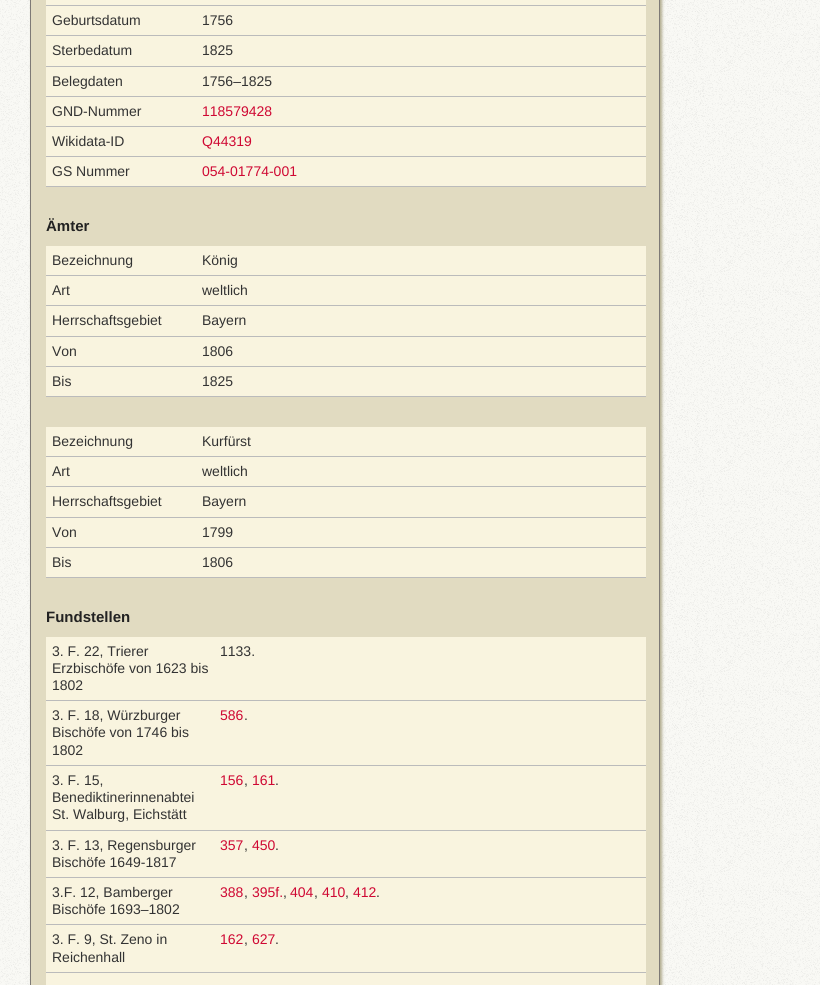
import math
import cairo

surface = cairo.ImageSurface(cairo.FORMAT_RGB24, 820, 985)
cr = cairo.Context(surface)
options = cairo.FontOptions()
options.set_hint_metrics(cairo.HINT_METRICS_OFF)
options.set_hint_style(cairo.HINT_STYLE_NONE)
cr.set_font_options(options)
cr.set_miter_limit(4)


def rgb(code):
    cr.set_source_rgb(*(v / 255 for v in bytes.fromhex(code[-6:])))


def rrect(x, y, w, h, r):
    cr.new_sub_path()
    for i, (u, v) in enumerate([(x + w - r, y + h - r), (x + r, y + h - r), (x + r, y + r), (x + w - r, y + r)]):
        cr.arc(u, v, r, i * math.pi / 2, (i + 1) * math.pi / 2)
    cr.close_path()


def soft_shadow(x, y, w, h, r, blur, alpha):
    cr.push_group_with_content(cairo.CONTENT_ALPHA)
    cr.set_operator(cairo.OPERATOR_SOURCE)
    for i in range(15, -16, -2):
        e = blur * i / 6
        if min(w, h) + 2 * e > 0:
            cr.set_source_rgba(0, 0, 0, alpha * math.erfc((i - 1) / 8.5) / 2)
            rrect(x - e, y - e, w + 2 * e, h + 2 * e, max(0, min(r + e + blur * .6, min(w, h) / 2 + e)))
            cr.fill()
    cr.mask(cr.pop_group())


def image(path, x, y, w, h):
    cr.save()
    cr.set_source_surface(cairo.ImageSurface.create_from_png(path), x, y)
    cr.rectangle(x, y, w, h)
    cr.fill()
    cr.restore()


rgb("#ffffff")
cr.paint()
image("img/1.png", 0, 0, 820, 985)
rgb("#b0ab8d")
soft_shadow(32, -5, 630, 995, 0, 1.5, 1)
rgb("#e1dbc1")
cr.rectangle(30.5, -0.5, 629, 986)
cr.fill_preserve()
rgb("#7d7976")
cr.set_line_width(1)
cr.stroke()
for x, y, w, h, color in [
    (46, 0, 600, 5, "#f9f4df"),
    (46, 5, 600, 1, "#bbbbbb"),
    (46, 6, 600, 29, "#f9f4df"),
    (46, 35, 600, 1, "#bbbbbb"),
    (46, 36, 600, 30, "#f9f4df"),
    (46, 66, 600, 1, "#bbbbbb"),
    (46, 67, 600, 29, "#f9f4df"),
    (46, 96, 600, 1, "#bbbbbb"),
    (46, 97, 600, 29, "#f9f4df"),
    (46, 126, 600, 1, "#bbbbbb"),
    (46, 127, 600, 29, "#f9f4df"),
    (46, 156, 600, 1, "#bbbbbb"),
    (46, 157, 600, 29, "#f9f4df"),
    (46, 186, 600, 1, "#bbbbbb"),
    (46, 246, 600, 29, "#f9f4df"),
    (46, 275, 600, 1, "#bbbbbb"),
    (46, 276, 600, 29, "#f9f4df"),
    (46, 305, 600, 1, "#bbbbbb"),
    (46, 306, 600, 30, "#f9f4df"),
    (46, 336, 600, 1, "#bbbbbb"),
    (46, 337, 600, 29, "#f9f4df"),
    (46, 366, 600, 1, "#bbbbbb"),
    (46, 367, 600, 29, "#f9f4df"),
    (46, 396, 600, 1, "#bbbbbb"),
    (46, 427, 600, 29, "#f9f4df"),
    (46, 456, 600, 1, "#bbbbbb"),
    (46, 457, 600, 29, "#f9f4df"),
    (46, 486, 600, 1, "#bbbbbb"),
    (46, 487, 600, 30, "#f9f4df"),
    (46, 517, 600, 1, "#bbbbbb"),
    (46, 518, 600, 29, "#f9f4df"),
    (46, 547, 600, 1, "#bbbbbb"),
    (46, 548, 600, 29, "#f9f4df"),
    (46, 577, 600, 1, "#bbbbbb"),
    (46, 637, 600, 63, "#f9f4df"),
    (46, 700, 600, 1, "#bbbbbb"),
    (46, 701, 600, 64, "#f9f4df"),
    (46, 765, 600, 1, "#bbbbbb"),
    (46, 766, 600, 64, "#f9f4df"),
    (46, 830, 600, 1, "#bbbbbb"),
    (46, 831, 600, 46, "#f9f4df"),
    (46, 877, 600, 1, "#bbbbbb"),
    (46, 878, 600, 46, "#f9f4df"),
    (46, 924, 600, 1, "#bbbbbb"),
    (46, 925, 600, 47, "#f9f4df"),
    (46, 972, 600, 1, "#bbbbbb"),
    (46, 973, 600, 12, "#f9f4df"),
]:
    rgb(color)
    cr.rectangle(x, y, w, h)
    cr.fill()
cr.select_font_face("Liberation Sans")
cr.set_font_size(14)
rgb("#333333")
for x, y, s in [
    (52, 25, "Geburtsdatum"),
    (202, 25, "1756"),
    (52, 55, "Sterbedatum"),
    (202, 55, "1825"),
    (52, 86, "Belegdaten"),
    (202, 86, "1756–1825"),
    (52, 116, "GND-Nummer"),
]:
    cr.move_to(x, y)
    cr.show_text(s)
rgb("#cf0833")
cr.move_to(202, 116)
cr.show_text("118579428")
rgb("#333333")
cr.move_to(52, 146)
cr.show_text("Wikidata-ID")
rgb("#cf0833")
cr.move_to(202, 146)
cr.show_text("Q44319")
rgb("#333333")
cr.move_to(52, 176)
cr.show_text("GS Nummer")
rgb("#cf0833")
cr.move_to(202, 176)
cr.show_text("054-01774-001")
cr.select_font_face("Liberation Sans", cairo.FONT_SLANT_NORMAL, cairo.FONT_WEIGHT_BOLD)
cr.set_font_size(15)
rgb("#222222")
cr.move_to(46, 231)
cr.show_text("Ämter")
cr.select_font_face("Liberation Sans")
cr.set_font_size(14)
rgb("#333333")
for x, y, s in [
    (52, 265, "Bezeichnung"),
    (202, 265, "König"),
    (52, 295, "Art"),
    (202, 295, "weltlich"),
    (52, 325, "Herrschaftsgebiet"),
    (202, 325, "Bayern"),
    (52, 356, "Von"),
    (202, 356, "1806"),
    (52, 386, "Bis"),
    (202, 386, "1825"),
    (52, 446, "Bezeichnung"),
    (202, 446, "Kurfürst"),
    (52, 476, "Art"),
    (202, 476, "weltlich"),
    (52, 506, "Herrschaftsgebiet"),
    (202, 506, "Bayern"),
    (52, 537, "Von"),
    (202, 537, "1799"),
    (52, 567, "Bis"),
    (202, 567, "1806"),
]:
    cr.move_to(x, y)
    cr.show_text(s)
cr.select_font_face("Liberation Sans", cairo.FONT_SLANT_NORMAL, cairo.FONT_WEIGHT_BOLD)
cr.set_font_size(15)
rgb("#222222")
cr.move_to(46, 622)
cr.show_text("Fundstellen")
cr.select_font_face("Liberation Sans")
cr.set_font_size(14)
rgb("#333333")
for x, y, s in [
    (52, 656, "3. F. 22, Trierer"),
    (52, 673, "Erzbischöfe von 1623 bis"),
    (52, 690, "1802"),
    (220, 656, "1133."),
    (52, 720, "3. F. 18, Würzburger"),
    (52, 737, "Bischöfe von 1746 bis"),
    (52, 755, "1802"),
]:
    cr.move_to(x, y)
    cr.show_text(s)
rgb("#cf0833")
cr.move_to(220, 720)
cr.show_text("586")
rgb("#333333")
for x, y, s in [
    (244, 720, "."),
    (52, 785, "3. F. 15,"),
    (52, 802, "Benediktinerinnenabtei"),
    (52, 819, "St. Walburg, Eichstätt"),
]:
    cr.move_to(x, y)
    cr.show_text(s)
rgb("#cf0833")
cr.move_to(220, 785)
cr.show_text("156")
rgb("#333333")
cr.move_to(244, 785)
cr.show_text(",")
rgb("#cf0833")
cr.move_to(252, 785)
cr.show_text("161")
rgb("#333333")
for x, y, s in [
    (275, 785, "."),
    (52, 850, "3. F. 13, Regensburger"),
    (52, 867, "Bischöfe 1649-1817"),
]:
    cr.move_to(x, y)
    cr.show_text(s)
rgb("#cf0833")
cr.move_to(220, 850)
cr.show_text("357")
rgb("#333333")
cr.move_to(244, 850)
cr.show_text(",")
rgb("#cf0833")
cr.move_to(252, 850)
cr.show_text("450")
rgb("#333333")
for x, y, s in [
    (275, 850, "."),
    (52, 897, "3.F. 12, Bamberger"),
    (52, 914, "Bischöfe 1693–1802"),
]:
    cr.move_to(x, y)
    cr.show_text(s)
rgb("#cf0833")
cr.move_to(220, 897)
cr.show_text("388")
rgb("#333333")
cr.move_to(244, 897)
cr.show_text(",")
rgb("#cf0833")
cr.move_to(252, 897)
cr.show_text("395f.")
rgb("#333333")
cr.move_to(283, 897)
cr.show_text(",")
rgb("#cf0833")
cr.move_to(290, 897)
cr.show_text("404")
rgb("#333333")
cr.move_to(314, 897)
cr.show_text(",")
rgb("#cf0833")
cr.move_to(322, 897)
cr.show_text("410")
rgb("#333333")
cr.move_to(345, 897)
cr.show_text(",")
rgb("#cf0833")
cr.move_to(353, 897)
cr.show_text("412")
rgb("#333333")
for x, y, s in [
    (376, 897, "."),
    (52, 944, "3. F. 9, St. Zeno in"),
    (52, 962, "Reichenhall"),
]:
    cr.move_to(x, y)
    cr.show_text(s)
rgb("#cf0833")
cr.move_to(220, 944)
cr.show_text("162")
rgb("#333333")
cr.move_to(244, 944)
cr.show_text(",")
rgb("#cf0833")
cr.move_to(252, 944)
cr.show_text("627")
rgb("#333333")
cr.move_to(275, 944)
cr.show_text(".")
surface.write_to_png("page.png")
